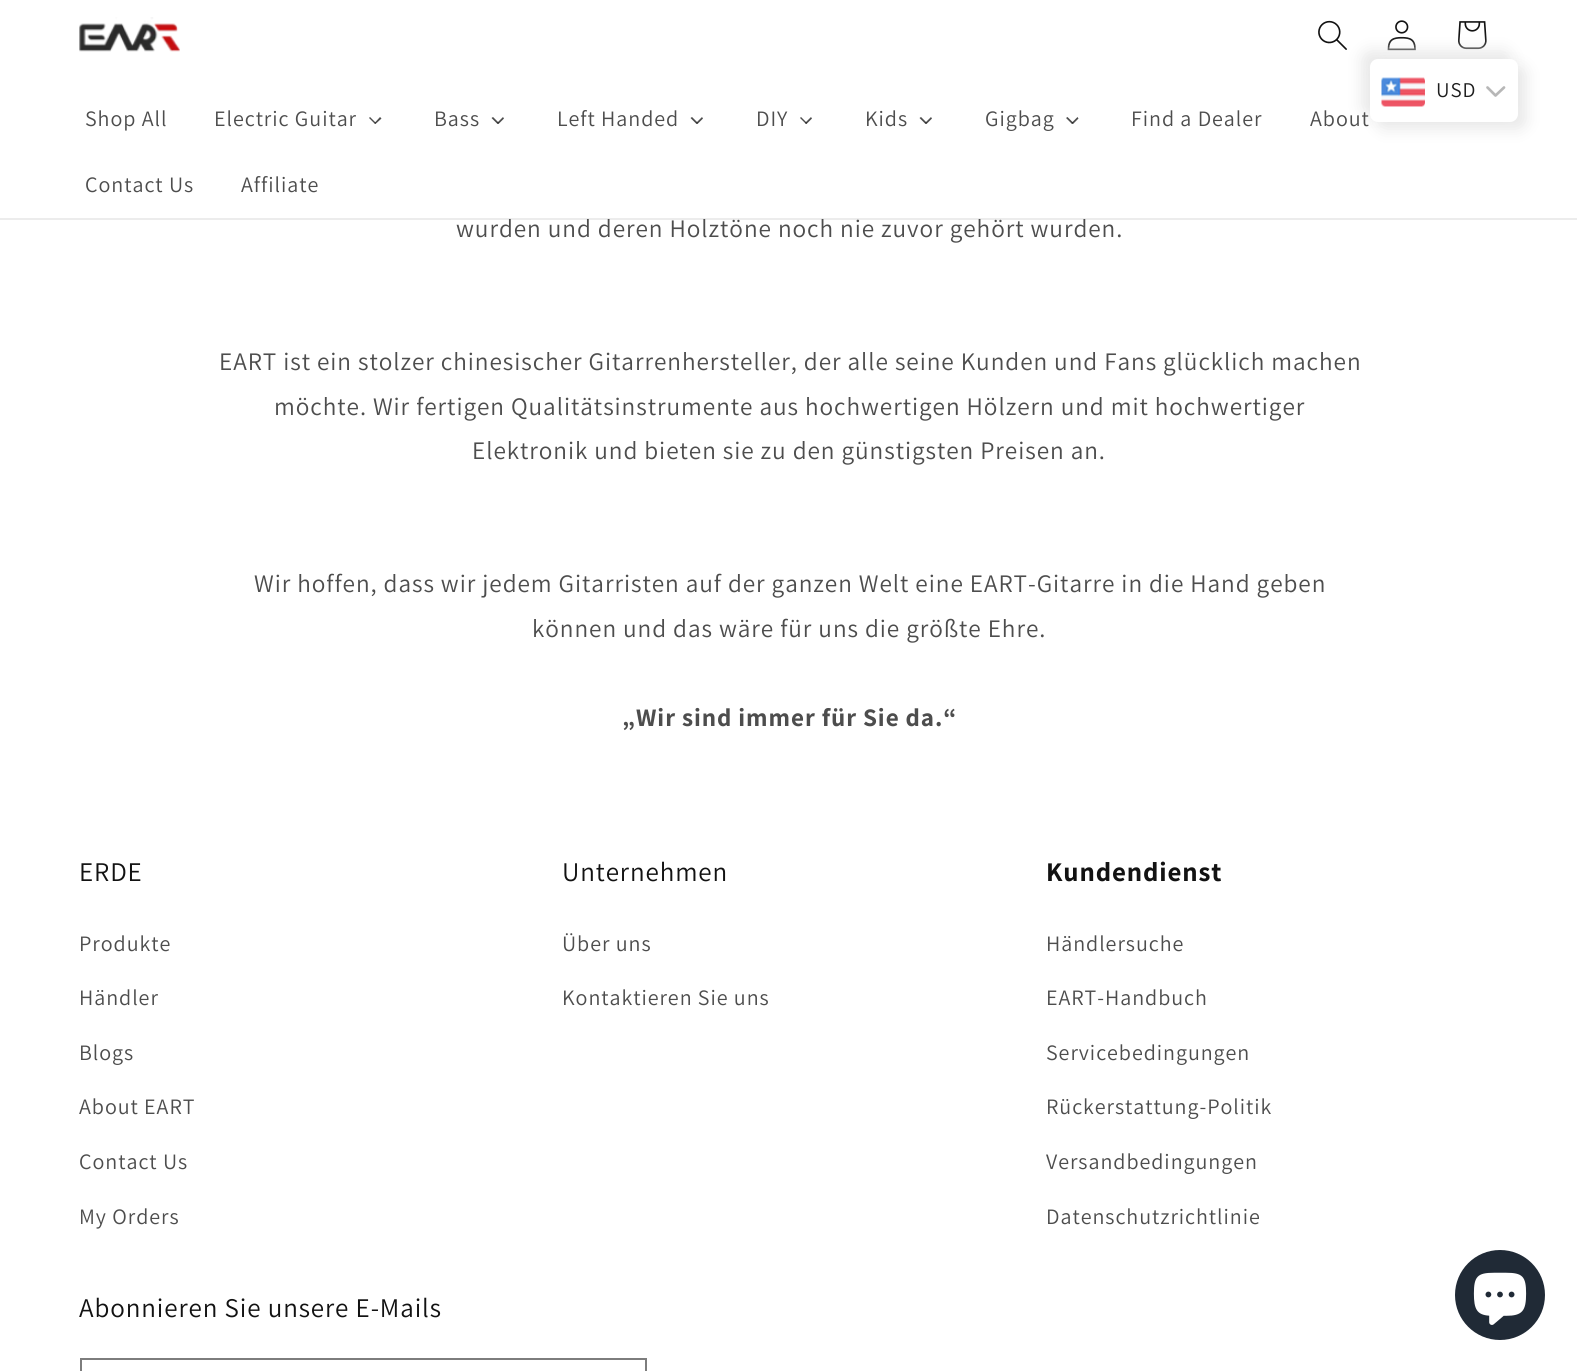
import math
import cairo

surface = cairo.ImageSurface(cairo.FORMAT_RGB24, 1577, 1371)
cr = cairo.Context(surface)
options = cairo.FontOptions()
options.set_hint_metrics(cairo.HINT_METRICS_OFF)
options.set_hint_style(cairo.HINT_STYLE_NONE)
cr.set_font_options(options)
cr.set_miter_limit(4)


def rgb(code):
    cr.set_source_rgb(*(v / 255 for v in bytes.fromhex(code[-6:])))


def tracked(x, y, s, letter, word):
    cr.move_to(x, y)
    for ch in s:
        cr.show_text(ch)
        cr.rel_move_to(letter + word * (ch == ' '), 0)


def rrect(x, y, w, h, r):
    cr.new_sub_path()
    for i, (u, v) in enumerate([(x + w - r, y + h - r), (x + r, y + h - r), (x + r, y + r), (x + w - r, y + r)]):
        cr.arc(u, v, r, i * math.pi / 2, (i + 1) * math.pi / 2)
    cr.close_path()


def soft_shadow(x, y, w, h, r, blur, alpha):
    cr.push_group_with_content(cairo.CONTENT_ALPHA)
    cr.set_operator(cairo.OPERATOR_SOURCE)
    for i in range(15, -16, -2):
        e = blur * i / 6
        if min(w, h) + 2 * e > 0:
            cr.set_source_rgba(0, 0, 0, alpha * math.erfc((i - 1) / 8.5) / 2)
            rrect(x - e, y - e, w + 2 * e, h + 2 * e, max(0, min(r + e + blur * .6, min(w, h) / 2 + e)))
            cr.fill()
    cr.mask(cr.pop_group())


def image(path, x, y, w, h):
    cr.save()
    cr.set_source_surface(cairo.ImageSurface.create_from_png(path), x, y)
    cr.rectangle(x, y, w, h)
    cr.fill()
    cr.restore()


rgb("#ffffff")
cr.paint()
image("img/3.png", 1318, 20, 29, 30)
image("img/4.png", 1387, 20, 29, 31)
image("img/5.png", 1458, 21, 29, 29)
rgb("#e8e8e8")
soft_shadow(1362, 51, 149, 63, 8, 7.5, 1)
soft_shadow(1377, 66, 149, 63, 8, 7.5, 1)
rgb("#ffffff")
rrect(1370, 59, 148, 63, 8)
cr.fill()
image("img/1.png", 1381, 77, 44, 30)
cr.new_path()
cr.move_to(1487.5, 87.5)
cr.line_to(1495.5, 95.5)
cr.line_to(1504, 87.5)
rgb("#b7b7b7")
cr.set_line_width(2.7)
cr.set_line_cap(cairo.LINE_CAP_ROUND)
cr.set_line_join(cairo.LINE_JOIN_ROUND)
cr.stroke()
cr.set_source_rgba(0.071, 0.071, 0.071, 0.08)
cr.rectangle(0, 218, 1577, 2)
cr.fill()
image("img/2.png", 79, 17, 101, 35)
rgb("#4d4d4d")
cr.new_path()
cr.move_to(380, 117)
cr.line_to(381.5, 118.5)
cr.line_to(375.5, 124)
cr.line_to(374.5, 123)
cr.close_path()
cr.fill()
cr.set_source_rgba(0.071, 0.071, 0.071, 0.75)
cr.new_path()
cr.move_to(370, 117)
cr.line_to(376, 123)
cr.line_to(375, 124)
cr.line_to(369, 118)
cr.close_path()
cr.fill()
rgb("#4d4d4d")
cr.new_path()
cr.move_to(503, 117)
cr.line_to(504, 118.5)
cr.line_to(498.5, 124)
cr.line_to(497, 123)
cr.close_path()
cr.fill()
cr.set_source_rgba(0.071, 0.071, 0.071, 0.75)
cr.new_path()
cr.move_to(493, 117)
cr.line_to(499, 123)
cr.line_to(497.5, 124)
cr.line_to(491.5, 118)
cr.close_path()
cr.fill()
rgb("#4d4d4d")
cr.new_path()
cr.move_to(702, 117)
cr.line_to(703, 118.5)
cr.line_to(697.5, 124)
cr.line_to(696, 123)
cr.close_path()
cr.fill()
cr.set_source_rgba(0.071, 0.071, 0.071, 0.75)
cr.new_path()
cr.move_to(692, 117)
cr.line_to(698, 123)
cr.line_to(696.5, 124)
cr.line_to(690.5, 118)
cr.close_path()
cr.fill()
rgb("#4d4d4d")
cr.new_path()
cr.move_to(811, 117)
cr.line_to(812, 118.5)
cr.line_to(806.5, 124)
cr.line_to(805, 123)
cr.close_path()
cr.fill()
cr.set_source_rgba(0.071, 0.071, 0.071, 0.75)
cr.new_path()
cr.move_to(801, 117)
cr.line_to(807, 123)
cr.line_to(806, 124)
cr.line_to(800, 118)
cr.close_path()
cr.fill()
rgb("#4d4d4d")
cr.new_path()
cr.move_to(931, 117)
cr.line_to(932, 118.5)
cr.line_to(926.5, 124)
cr.line_to(925, 123)
cr.close_path()
cr.fill()
cr.set_source_rgba(0.071, 0.071, 0.071, 0.75)
cr.new_path()
cr.move_to(921, 117)
cr.line_to(927, 123)
cr.line_to(925.5, 124)
cr.line_to(919.5, 118)
cr.close_path()
cr.fill()
rgb("#4d4d4d")
cr.new_path()
cr.move_to(1077.5, 117)
cr.line_to(1078.5, 118.5)
cr.line_to(1073, 124)
cr.line_to(1071.5, 123)
cr.close_path()
cr.fill()
cr.set_source_rgba(0.071, 0.071, 0.071, 0.75)
cr.new_path()
cr.move_to(1067.5, 117)
cr.line_to(1073.5, 123)
cr.line_to(1072, 124)
cr.line_to(1066, 118)
cr.close_path()
cr.fill()
cr.rectangle(81, 1359, 565, 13)
rgb("#7d7d7d")
cr.set_line_width(2)
cr.set_line_cap(cairo.LINE_CAP_BUTT)
cr.set_line_join(cairo.LINE_JOIN_MITER)
cr.stroke()
rgb("#202a36")
cr.arc(1500, 1295, 45, 0, 2 * math.pi)
cr.fill()
image("img/6.png", 1473, 1272, 54, 53)
cr.select_font_face("Assistant")
cr.set_font_size(21)
rgb("#1e1e1e")
tracked(1436, 97, "USD", 0.95, 0)
cr.set_font_size(22)
rgb("#4d4d4d")
for x, y, s in [
    (85, 126, "Shop All"),
    (214, 126, "Electric Guitar"),
    (434, 126, "Bass"),
    (557, 126, "Left Handed"),
    (756, 126, "DIY"),
    (865, 126, "Kids"),
    (985, 126, "Gigbag"),
    (1131, 126, "Find a Dealer"),
    (1310, 126, "About"),
    (85, 192, "Contact Us"),
    (241, 192, "Affiliate"),
]:
    tracked(x, y, s, 0.95, 0)
cr.set_font_size(25.2)
for x, y, s in [
    (456, 237, "wurden und deren Holztöne noch nie zuvor gehört wurden."),
    (219, 370, "EART ist ein stolzer chinesischer Gitarrenhersteller, der alle seine Kunden und Fans glücklich machen"),
    (274, 415, "möchte. Wir fertigen Qualitätsinstrumente aus hochwertigen Hölzern und mit hochwertiger"),
    (472, 459, "Elektronik und bieten sie zu den günstigsten Preisen an."),
    (254, 592, "Wir hoffen, dass wir jedem Gitarristen auf der ganzen Welt eine EART-Gitarre in die Hand geben"),
    (532, 637, "können und das wäre für uns die größte Ehre."),
]:
    tracked(x, y, s, 0.95, 0)
cr.select_font_face("Assistant", cairo.FONT_SLANT_NORMAL, cairo.FONT_WEIGHT_BOLD)
tracked(622, 726, "„Wir sind immer für Sie da.“", 0.95, 0)
cr.select_font_face("Assistant")
cr.set_font_size(27)
rgb("#121212")
tracked(79, 881, "ERDE", 0.9, 0)
cr.set_font_size(22)
rgb("#4d4d4d")
for x, y, s in [
    (79, 951, "Produkte"),
    (79, 1005, "Händler"),
    (79, 1060, "Blogs"),
    (79, 1114, "About EART"),
    (79, 1169, "Contact Us"),
    (79, 1224, "My Orders"),
]:
    tracked(x, y, s, 0.95, 0)
cr.set_font_size(27)
rgb("#121212")
tracked(562, 881, "Unternehmen", 0.9, 0)
cr.set_font_size(22)
rgb("#4d4d4d")
tracked(562, 951, "Über uns", 0.95, 0)
tracked(562, 1005, "Kontaktieren Sie uns", 0.95, 0)
cr.select_font_face("Assistant", cairo.FONT_SLANT_NORMAL, cairo.FONT_WEIGHT_BOLD)
cr.set_font_size(27)
rgb("#121212")
tracked(1046, 881, "Kundendienst", 0.9, 0)
cr.select_font_face("Assistant")
cr.set_font_size(22)
rgb("#4d4d4d")
for x, y, s in [
    (1046, 951, "Händlersuche"),
    (1046, 1005, "EART-Handbuch"),
    (1046, 1060, "Servicebedingungen"),
    (1046, 1114, "Rückerstattung-Politik"),
    (1046, 1169, "Versandbedingungen"),
    (1046, 1224, "Datenschutzrichtlinie"),
]:
    tracked(x, y, s, 0.95, 0)
cr.set_font_size(27)
rgb("#121212")
tracked(79, 1317, "Abonnieren Sie unsere E-Mails", 0.9, 0)
surface.write_to_png("page.png")
